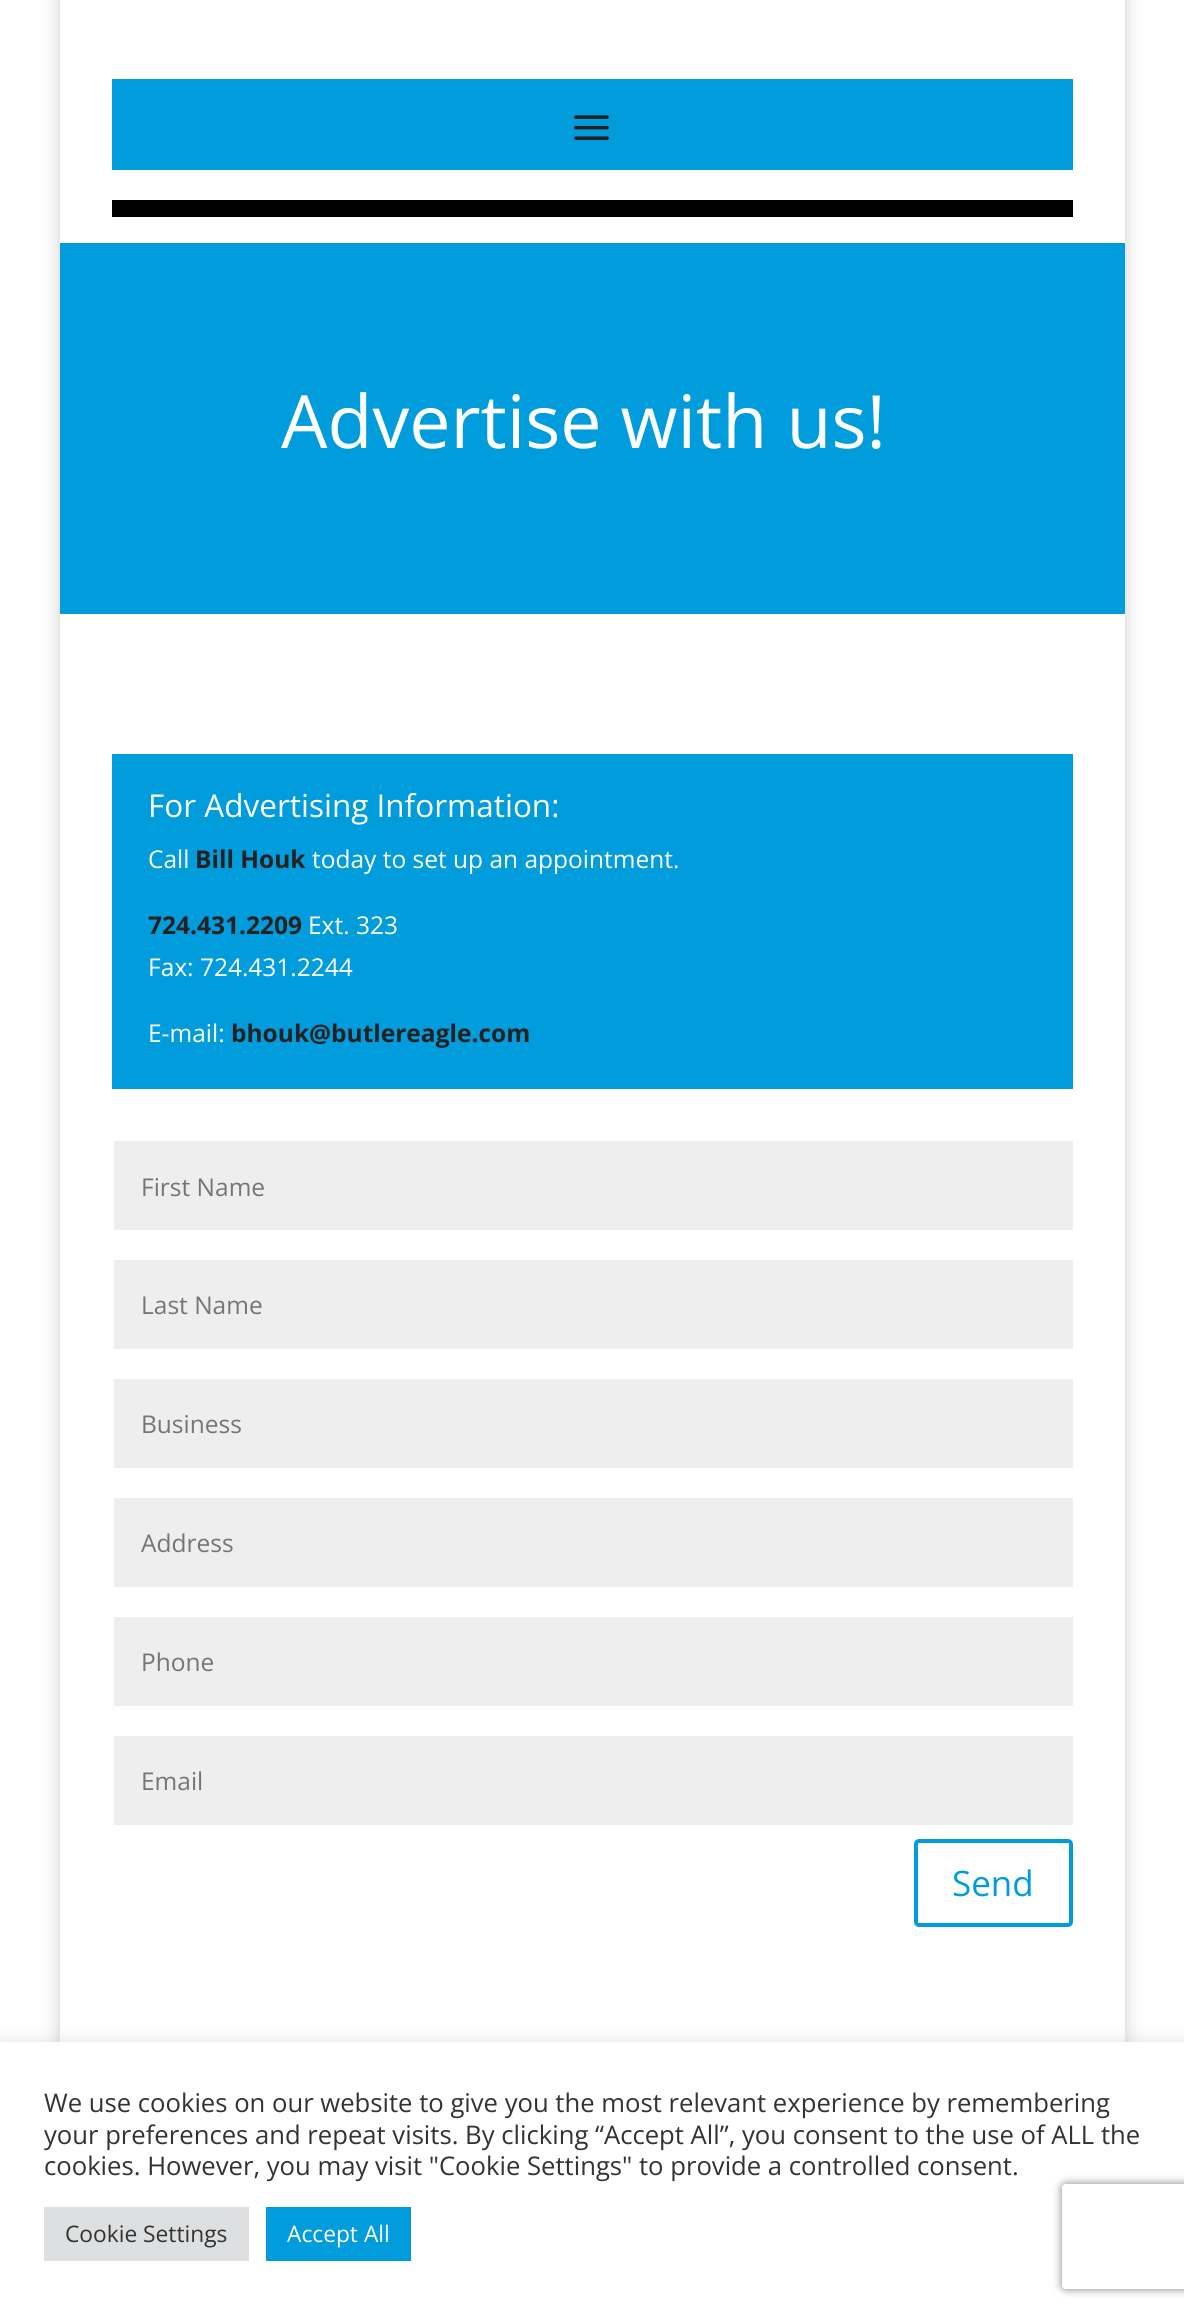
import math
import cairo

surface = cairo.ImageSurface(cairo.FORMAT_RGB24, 1184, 2313)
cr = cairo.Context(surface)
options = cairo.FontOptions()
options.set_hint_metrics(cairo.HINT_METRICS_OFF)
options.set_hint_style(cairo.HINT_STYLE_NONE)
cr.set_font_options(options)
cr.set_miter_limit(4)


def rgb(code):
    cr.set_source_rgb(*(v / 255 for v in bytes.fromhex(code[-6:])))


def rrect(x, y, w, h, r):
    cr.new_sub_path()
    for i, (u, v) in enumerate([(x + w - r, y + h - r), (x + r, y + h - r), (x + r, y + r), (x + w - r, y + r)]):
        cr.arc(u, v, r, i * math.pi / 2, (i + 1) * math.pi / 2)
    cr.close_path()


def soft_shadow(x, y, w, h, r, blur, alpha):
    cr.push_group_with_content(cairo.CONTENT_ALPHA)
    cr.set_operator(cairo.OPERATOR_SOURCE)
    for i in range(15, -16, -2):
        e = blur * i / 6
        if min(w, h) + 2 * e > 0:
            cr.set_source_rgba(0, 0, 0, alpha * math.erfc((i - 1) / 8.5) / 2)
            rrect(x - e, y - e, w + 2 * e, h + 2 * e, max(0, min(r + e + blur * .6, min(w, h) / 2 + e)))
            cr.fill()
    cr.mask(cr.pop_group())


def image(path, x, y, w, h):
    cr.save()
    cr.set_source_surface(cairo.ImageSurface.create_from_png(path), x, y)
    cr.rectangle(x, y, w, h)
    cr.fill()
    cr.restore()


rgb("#ffffff")
cr.paint()
cr.save()
cr.set_fill_rule(cairo.FILL_RULE_EVEN_ODD)
cr.new_path()
cr.move_to(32, 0)
cr.line_to(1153, 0)
cr.line_to(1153, 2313)
cr.line_to(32, 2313)
cr.close_path()
cr.move_to(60, -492)
cr.line_to(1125, -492)
cr.line_to(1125, 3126)
cr.line_to(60, 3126)
cr.close_path()
cr.clip()
rgb("#000000")
soft_shadow(60, -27, 1065, 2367, 0, 9, 0.2)
cr.restore()
rgb("#019cdc")
cr.rectangle(112, 79, 961, 91)
cr.fill()
image("img/1.png", 574, 115, 35, 25)
for x, y, w, h, color in [
    (112, 200, 961, 17, "#000000"),
    (60, 243, 1065, 371, "#019cdc"),
    (112, 754, 961, 335, "#019cdc"),
    (114, 1141, 959, 89, "#eeeeee"),
    (114, 1260, 959, 89, "#eeeeee"),
    (114, 1379, 959, 89, "#eeeeee"),
    (114, 1498, 959, 89, "#eeeeee"),
    (114, 1617, 959, 89, "#eeeeee"),
    (114, 1736, 959, 89, "#eeeeee"),
]:
    rgb(color)
    cr.rectangle(x, y, w, h)
    cr.fill()
rrect(916, 1841, 155, 84, 3)
rgb("#019cdc")
cr.set_line_width(4)
cr.stroke()
rgb("#acabab")
soft_shadow(0, 2041, 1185, 271, 0, 9, 0.3)
for x, y, w, h, color in [
    (0, 2042, 1184, 271, "#ffffff"),
    (44, 2207, 205, 54, "#dedfe0"),
    (266, 2207, 145, 54, "#019cdc"),
]:
    rgb(color)
    cr.rectangle(x, y, w, h)
    cr.fill()
cr.save()
cr.set_fill_rule(cairo.FILL_RULE_EVEN_ODD)
cr.new_path()
cr.move_to(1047, 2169)
cr.line_to(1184, 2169)
cr.line_to(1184, 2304)
cr.line_to(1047, 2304)
cr.close_path()
cr.move_to(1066, 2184)
cr.line_to(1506, 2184)
cr.curve_to(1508, 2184, 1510, 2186, 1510, 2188)
cr.line_to(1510, 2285)
cr.curve_to(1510, 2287, 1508, 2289, 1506, 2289)
cr.line_to(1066, 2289)
cr.curve_to(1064, 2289, 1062, 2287, 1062, 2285)
cr.line_to(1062, 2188)
cr.curve_to(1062, 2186, 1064, 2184, 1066, 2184)
cr.close_path()
cr.clip()
rgb("#808080")
soft_shadow(1062, 2184, 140, 105, 4, 4.5, 1)
cr.restore()
cr.select_font_face("Open Sans")
cr.set_font_size(73.5)
rgb("#ffffff")
cr.move_to(281, 448)
cr.show_text("Advertise with us!")
cr.set_font_size(31.5)
cr.move_to(148, 817)
cr.show_text("For Advertising Information:")
cr.set_font_size(24.5)
cr.move_to(148, 868)
cr.show_text("Call")
cr.select_font_face("Open Sans", cairo.FONT_SLANT_NORMAL, cairo.FONT_WEIGHT_BOLD)
rgb("#252122")
cr.move_to(195, 868)
cr.show_text("Bill Houk")
cr.select_font_face("Open Sans")
rgb("#ffffff")
cr.move_to(312, 868)
cr.show_text("today to set up an appointment.")
cr.select_font_face("Open Sans", cairo.FONT_SLANT_NORMAL, cairo.FONT_WEIGHT_BOLD)
rgb("#252122")
cr.move_to(148, 934)
cr.show_text("724.431.2209")
cr.select_font_face("Open Sans")
rgb("#ffffff")
for x, y, s in [
    (308, 934, "Ext. 323"),
    (148, 976, "Fax: 724.431.2244"),
    (148, 1042, "E-mail:"),
]:
    cr.move_to(x, y)
    cr.show_text(s)
cr.select_font_face("Open Sans", cairo.FONT_SLANT_NORMAL, cairo.FONT_WEIGHT_BOLD)
rgb("#252122")
cr.move_to(231, 1042)
cr.show_text("bhouk@butlereagle.com")
cr.select_font_face("Open Sans")
rgb("#757575")
for x, y, s in [
    (141, 1196, "First Name"),
    (141, 1314, "Last Name"),
    (141, 1433, "Business"),
    (141, 1552, "Address"),
    (141, 1671, "Phone"),
    (141, 1790, "Email"),
]:
    cr.move_to(x, y)
    cr.show_text(s)
cr.set_font_size(35)
rgb("#019cdc")
cr.move_to(952, 1896)
cr.show_text("Send")
cr.set_font_size(25.65)
rgb("#333333")
for x, y, s in [
    (44, 2112, "We use cookies on our website to give you the most relevant experience by remembering"),
    (44, 2144, "your preferences and repeat visits. By clicking “Accept All”, you consent to the use of ALL the"),
    (44, 2175, "cookies. However, you may visit \"Cookie Settings\" to provide a controlled consent."),
]:
    cr.move_to(x, y)
    cr.show_text(s)
cr.set_font_size(22.75)
cr.move_to(65, 2242)
cr.show_text("Cookie Settings")
rgb("#ffffff")
cr.move_to(287, 2242)
cr.show_text("Accept All")
surface.write_to_png("page.png")
